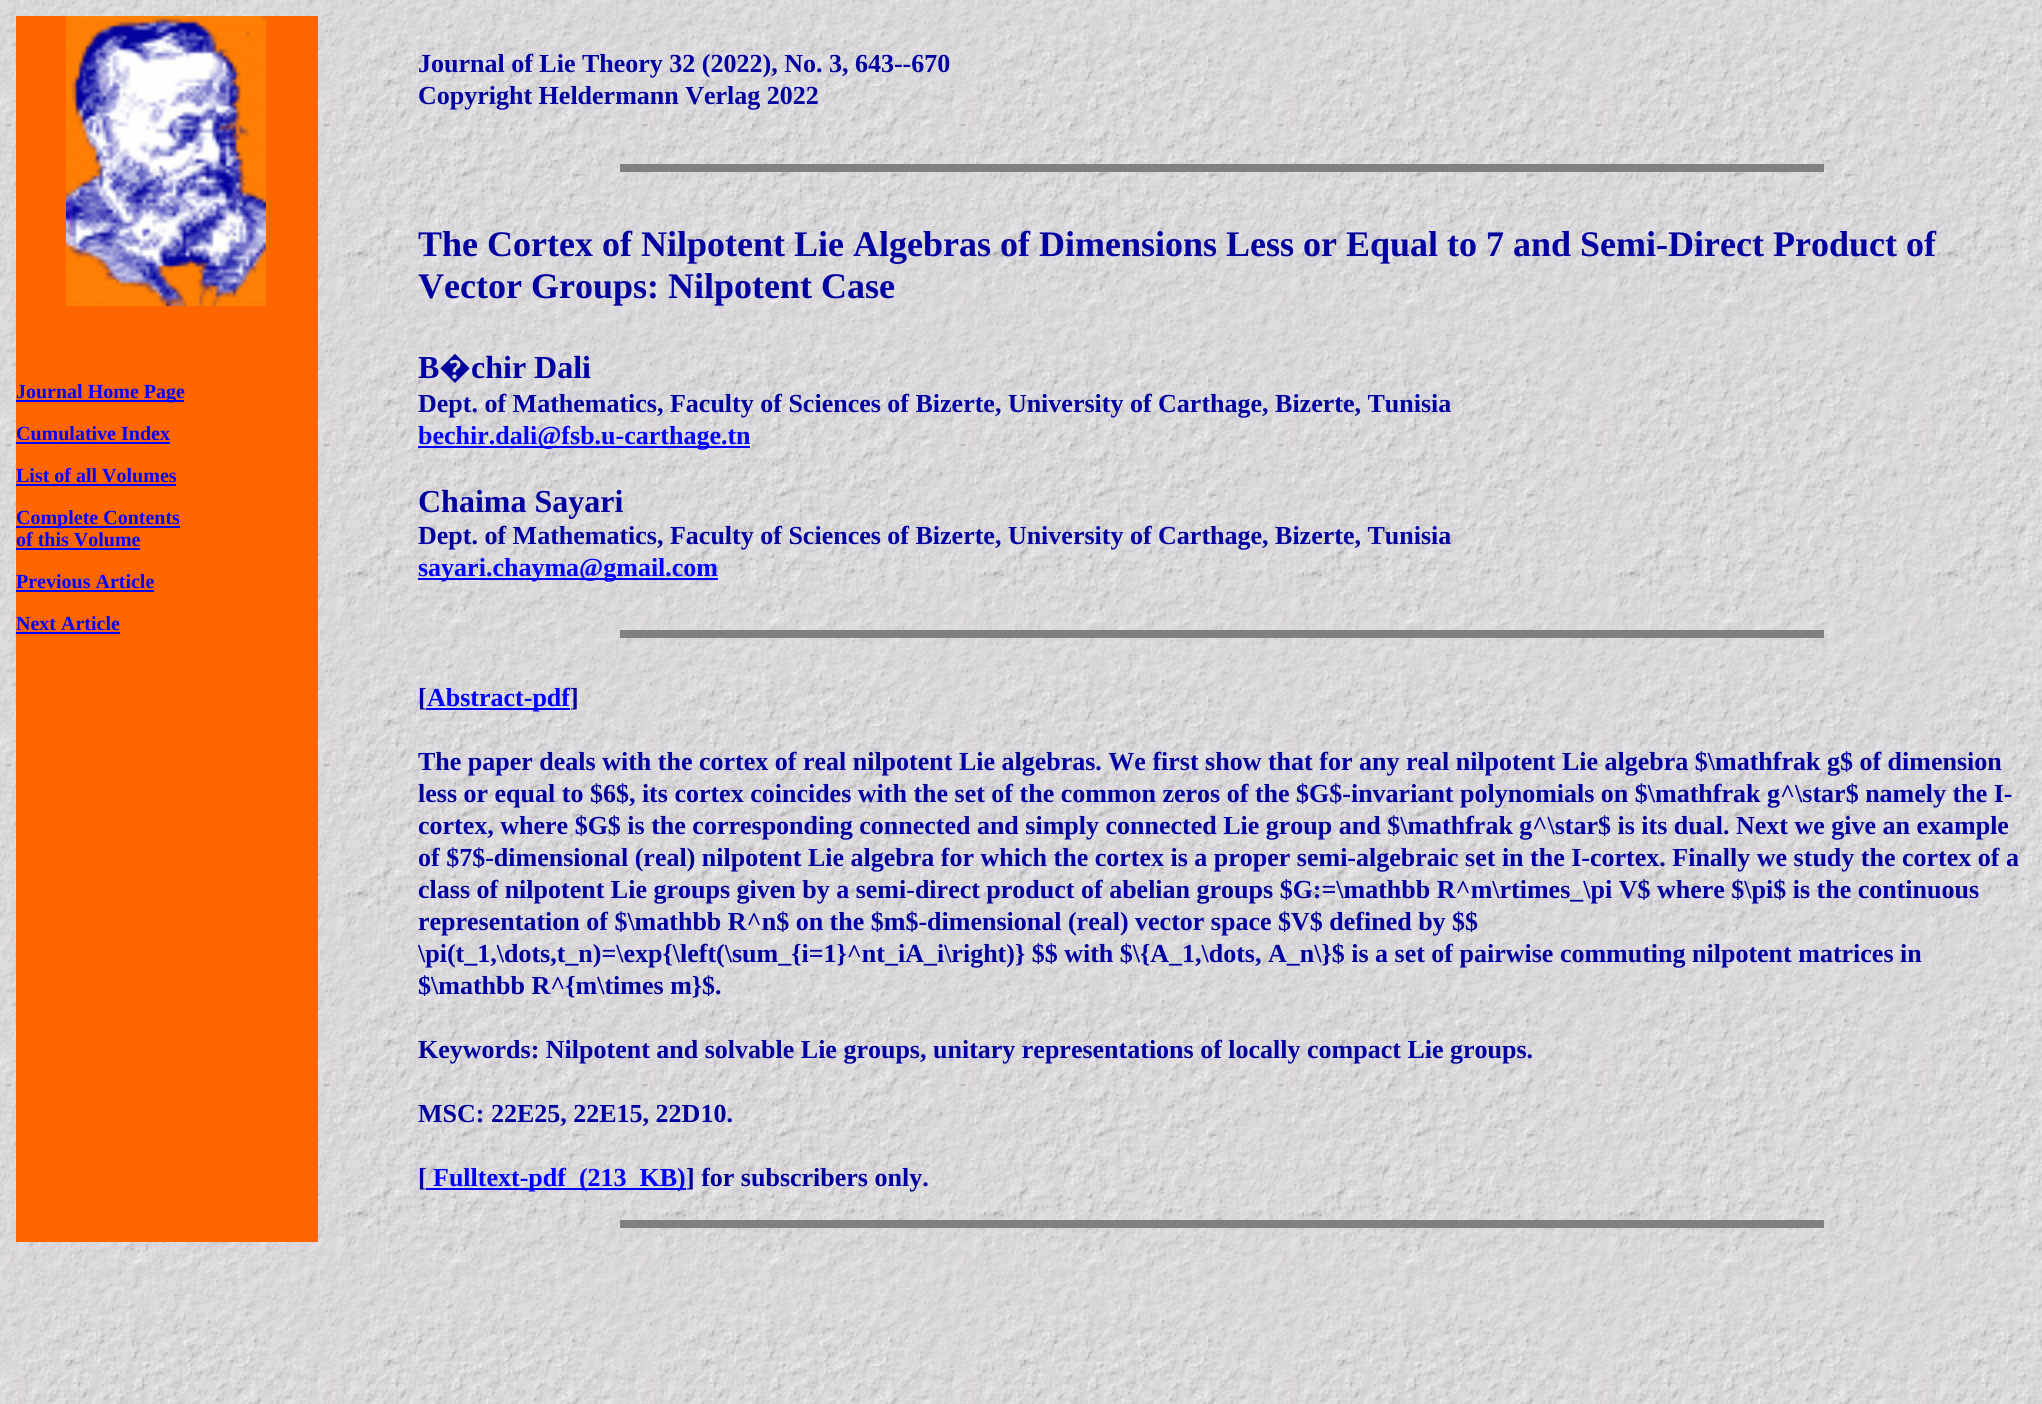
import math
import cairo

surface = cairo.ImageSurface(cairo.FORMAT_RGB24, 2042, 1404)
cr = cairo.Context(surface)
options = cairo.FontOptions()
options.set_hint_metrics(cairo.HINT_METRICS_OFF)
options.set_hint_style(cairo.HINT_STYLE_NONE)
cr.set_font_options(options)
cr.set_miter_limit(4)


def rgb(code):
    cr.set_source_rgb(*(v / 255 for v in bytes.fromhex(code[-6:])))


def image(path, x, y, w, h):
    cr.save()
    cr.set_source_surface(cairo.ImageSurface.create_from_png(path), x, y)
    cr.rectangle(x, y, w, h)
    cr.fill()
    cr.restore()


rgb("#ffffff")
cr.paint()
image("img/1.png", 0, 0, 2042, 1404)
rgb("#ff6600")
cr.rectangle(16, 16, 302, 1226)
cr.fill()
image("img/2.png", 66, 16, 200, 290)
for x, y, w, h, color in [
    (16, 400, 168, 2, "#0000ff"),
    (16, 442, 154, 2, "#0000ff"),
    (16, 484, 160, 2, "#0000ff"),
    (16, 526, 164, 2, "#0000ff"),
    (16, 548, 124, 2, "#0000ff"),
    (16, 590, 138, 2, "#0000ff"),
    (16, 632, 104, 2, "#0000ff"),
    (620, 164, 1204, 8, "#808080"),
    (418, 446, 332, 2, "#0000ff"),
    (418, 578, 300, 2, "#0000ff"),
    (620, 630, 1204, 8, "#808080"),
    (426, 708, 144, 2, "#0000ff"),
    (426, 1188, 260, 2, "#0000ff"),
    (620, 1220, 1204, 8, "#808080"),
]:
    rgb(color)
    cr.rectangle(x, y, w, h)
    cr.fill()
cr.select_font_face("Liberation Serif", cairo.FONT_SLANT_NORMAL, cairo.FONT_WEIGHT_BOLD)
cr.set_font_size(20)
rgb("#0000ff")
for x, y, s in [
    (16, 398, "Journal Home Page"),
    (16, 440, "Cumulative Index"),
    (16, 482, "List of all Volumes"),
    (16, 524, "Complete Contents"),
    (16, 546, "of this Volume"),
    (16, 588, "Previous Article"),
    (16, 630, "Next Article"),
]:
    cr.move_to(x, y)
    cr.show_text(s)
cr.set_font_size(26)
rgb("#0000a0")
cr.move_to(418, 72)
cr.show_text("Journal of Lie Theory 32 (2022), No. 3, 643--670")
cr.move_to(418, 104)
cr.show_text("Copyright Heldermann Verlag 2022")
cr.set_font_size(36)
cr.move_to(418, 256)
cr.show_text("The Cortex of Nilpotent Lie Algebras of Dimensions Less or Equal to 7 and Semi-Direct Product of")
cr.move_to(418, 298)
cr.show_text("Vector Groups: Nilpotent Case")
cr.set_font_size(32)
cr.move_to(418, 378)
cr.show_text("B")
cr.select_font_face("Noto Sans", cairo.FONT_SLANT_NORMAL, cairo.FONT_WEIGHT_BOLD)
cr.move_to(439, 378)
cr.show_text("�")
cr.select_font_face("Liberation Serif", cairo.FONT_SLANT_NORMAL, cairo.FONT_WEIGHT_BOLD)
cr.move_to(471, 378)
cr.show_text("chir Dali")
cr.set_font_size(26)
cr.move_to(418, 412)
cr.show_text("Dept. of Mathematics, Faculty of Sciences of Bizerte, University of Carthage, Bizerte, Tunisia")
rgb("#0000ff")
cr.move_to(418, 444)
cr.show_text("bechir.dali@fsb.u-carthage.tn")
cr.set_font_size(32)
rgb("#0000a0")
cr.move_to(418, 512)
cr.show_text("Chaima Sayari")
cr.set_font_size(26)
cr.move_to(418, 544)
cr.show_text("Dept. of Mathematics, Faculty of Sciences of Bizerte, University of Carthage, Bizerte, Tunisia")
rgb("#0000ff")
cr.move_to(418, 576)
cr.show_text("sayari.chayma@gmail.com")
rgb("#0000a0")
cr.move_to(418, 706)
cr.show_text("[")
rgb("#0000ff")
cr.move_to(427, 706)
cr.show_text("Abstract-pdf")
rgb("#0000a0")
for x, y, s in [
    (570, 706, "]"),
    (418, 770, "The paper deals with the cortex of real nilpotent Lie algebras. We first show that for any real nilpotent Lie algebra $\\mathfrak g$ of dimension"),
    (418, 802, "less or equal to $6$, its cortex coincides with the set of the common zeros of the $G$-invariant polynomials on $\\mathfrak g^\\star$ namely the I-"),
    (418, 834, "cortex, where $G$ is the corresponding connected and simply connected Lie group and $\\mathfrak g^\\star$ is its dual. Next we give an example"),
    (418, 866, "of $7$-dimensional (real) nilpotent Lie algebra for which the cortex is a proper semi-algebraic set in the I-cortex. Finally we study the cortex of a"),
    (418, 898, "class of nilpotent Lie groups given by a semi-direct product of abelian groups $G:=\\mathbb R^m\\rtimes_\\pi V$ where $\\pi$ is the continuous"),
    (418, 930, "representation of $\\mathbb R^n$ on the $m$-dimensional (real) vector space $V$ defined by $$"),
    (418, 962, "\\pi(t_1,\\dots,t_n)=\\exp{\\left(\\sum_{i=1}^nt_iA_i\\right)} $$ with $\\{A_1,\\dots, A_n\\}$ is a set of pairwise commuting nilpotent matrices in"),
    (418, 994, "$\\mathbb R^{m\\times m}$."),
    (418, 1058, "Keywords: Nilpotent and solvable Lie groups, unitary representations of locally compact Lie groups."),
    (418, 1122, "MSC: 22E25, 22E15, 22D10."),
    (418, 1186, "["),
]:
    cr.move_to(x, y)
    cr.show_text(s)
rgb("#0000ff")
cr.move_to(433, 1186)
cr.show_text("Fulltext-pdf  (213  KB)")
rgb("#0000a0")
cr.move_to(686, 1186)
cr.show_text("] for subscribers only.")
surface.write_to_png("page.png")
